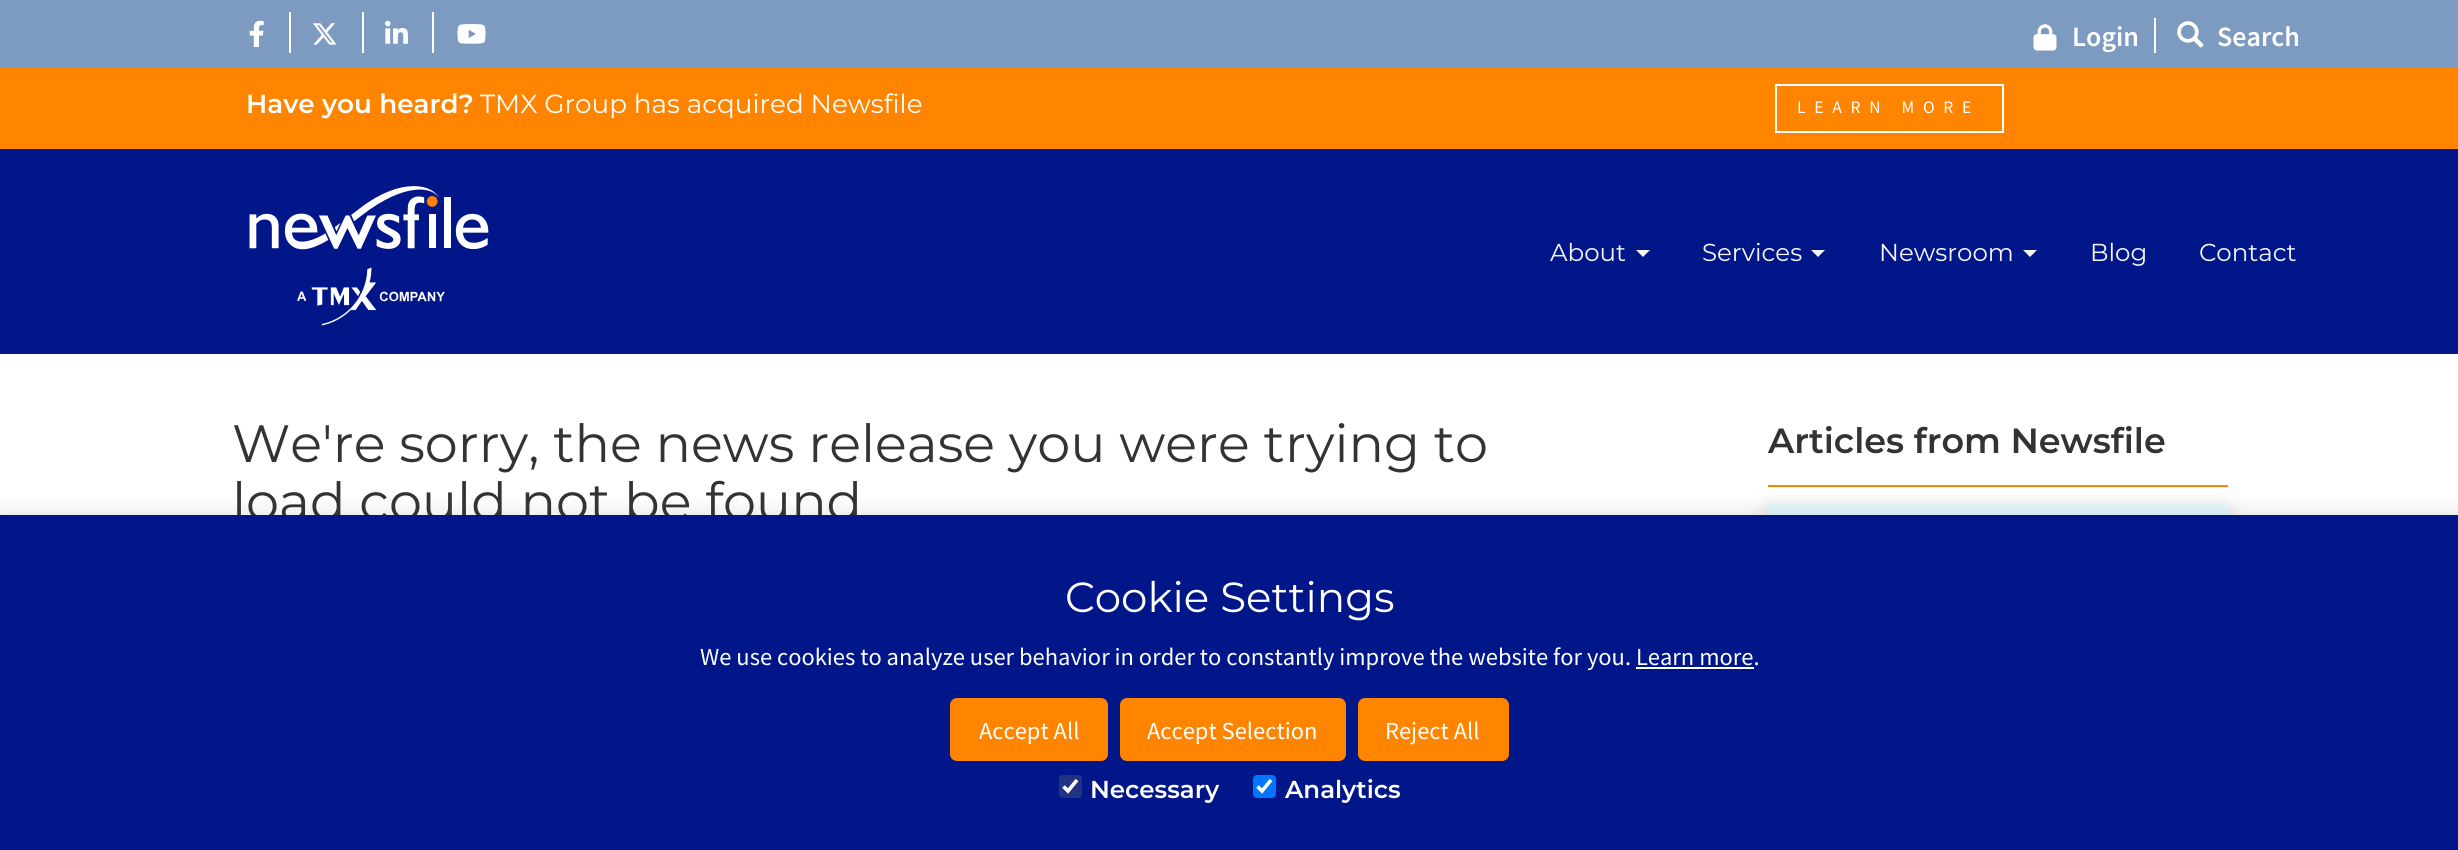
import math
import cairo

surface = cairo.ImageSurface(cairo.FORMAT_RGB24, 2458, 850)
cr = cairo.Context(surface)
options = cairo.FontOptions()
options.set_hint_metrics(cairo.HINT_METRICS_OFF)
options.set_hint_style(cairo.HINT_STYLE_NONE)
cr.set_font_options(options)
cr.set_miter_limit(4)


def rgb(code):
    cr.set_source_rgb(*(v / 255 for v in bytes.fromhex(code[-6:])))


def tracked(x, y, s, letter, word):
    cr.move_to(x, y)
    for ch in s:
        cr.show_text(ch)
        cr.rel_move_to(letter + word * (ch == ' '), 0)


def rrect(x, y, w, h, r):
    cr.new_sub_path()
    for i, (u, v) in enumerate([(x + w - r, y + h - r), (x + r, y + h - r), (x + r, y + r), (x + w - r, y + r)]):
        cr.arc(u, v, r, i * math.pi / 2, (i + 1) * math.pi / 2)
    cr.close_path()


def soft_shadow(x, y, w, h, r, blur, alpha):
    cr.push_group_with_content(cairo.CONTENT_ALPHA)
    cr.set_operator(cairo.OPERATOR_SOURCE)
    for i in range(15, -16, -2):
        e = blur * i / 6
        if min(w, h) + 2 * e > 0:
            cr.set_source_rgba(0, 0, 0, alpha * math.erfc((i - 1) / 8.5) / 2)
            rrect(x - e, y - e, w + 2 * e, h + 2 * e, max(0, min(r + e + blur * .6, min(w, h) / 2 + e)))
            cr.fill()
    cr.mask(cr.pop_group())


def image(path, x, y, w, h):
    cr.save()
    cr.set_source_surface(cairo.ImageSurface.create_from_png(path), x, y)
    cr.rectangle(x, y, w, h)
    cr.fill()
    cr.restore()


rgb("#ffffff")
cr.paint()
rgb("#7d9bc0")
cr.rectangle(0, 0, 2458, 68)
cr.fill()
rgb("#ffffff")
cr.rectangle(289, 12, 2, 41)
cr.fill()
image("img/1.png", 249, 20, 15, 27)
cr.rectangle(362, 12, 2, 41)
cr.fill()
image("img/2.png", 313, 23, 24, 22)
cr.rectangle(432, 12, 2, 41)
cr.fill()
image("img/3.png", 385, 20, 23, 24)
image("img/4.png", 457, 24, 29, 20)
cr.rectangle(2154, 18, 2, 35)
cr.fill()
image("img/5.png", 2033, 24, 24, 27)
image("img/6.png", 2177, 21, 27, 27)
rgb("#ff8400")
cr.rectangle(0, 68, 2458, 81)
cr.fill()
cr.rectangle(1776, 85, 227, 47)
rgb("#ffffff")
cr.stroke()
rgb("#001689")
cr.rectangle(0, 149, 2458, 205)
cr.fill()
image("img/7.png", 249, 186, 240, 140)
rgb("#f7f7f7")
cr.new_path()
cr.move_to(1636, 250)
cr.line_to(1650, 250)
cr.line_to(1643, 257)
cr.close_path()
cr.fill()
cr.new_path()
cr.move_to(1811, 250)
cr.line_to(1825, 250)
cr.line_to(1818, 257)
cr.close_path()
cr.fill()
cr.new_path()
cr.move_to(2023, 250)
cr.line_to(2037, 250)
cr.line_to(2030, 257)
cr.close_path()
cr.fill()
rgb("#ff8400")
cr.rectangle(1768, 485, 460, 2)
cr.fill()
rgb("#070a19")
soft_shadow(1769, 511, 457, 303, 0, 10.5, 0.2)
image("img/8.png", 1767, 504, 461, 11)
rgb("#000000")
soft_shadow(0, 511, 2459, 336, 0, 9, 0.1)
cr.select_font_face("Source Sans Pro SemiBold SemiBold")
cr.set_font_size(28)
rgb("#ffffff")
cr.move_to(2072, 46)
cr.show_text("Login")
cr.move_to(2217, 46)
cr.show_text("Search")
cr.select_font_face("Montserrat SemiBold")
cr.set_font_size(26.25)
cr.move_to(246, 113)
cr.show_text("Have you heard?")
cr.select_font_face("Montserrat")
cr.move_to(480, 113)
cr.show_text("TMX Group has acquired Newsfile")
cr.select_font_face("Source Sans Pro")
cr.set_font_size(17.5)
tracked(1797, 113, "LEARN MORE", 8.75, 0)
cr.select_font_face("Montserrat")
cr.set_font_size(24.5)
rgb("#f7f7f7")
for x, y, s in [
    (1550, 261, "About"),
    (1702, 261, "Services"),
    (1879, 261, "Newsroom"),
    (2090, 261, "Blog"),
    (2199, 261, "Contact"),
]:
    cr.move_to(x, y)
    cr.show_text(s)
cr.set_font_size(52.5)
rgb("#333333")
cr.move_to(232, 462)
cr.show_text("We're sorry, the news release you were trying to")
cr.move_to(232, 520)
cr.show_text("load could not be found")
cr.select_font_face("Montserrat SemiBold")
cr.set_font_size(35)
cr.move_to(1768, 453)
cr.show_text("Articles from Newsfile")
rgb("#001689")
cr.rectangle(0, 515, 2458, 335)
cr.fill()
cr.select_font_face("Montserrat")
cr.set_font_size(42)
rgb("#ffffff")
cr.move_to(1065, 612)
cr.show_text("Cookie Settings")
cr.select_font_face("Source Sans Pro")
cr.set_font_size(24.5)
cr.move_to(700, 665)
cr.show_text("We use cookies to analyze user behavior in order to constantly improve the website for you. Learn more.")
cr.rectangle(1636, 667, 118, 2)
cr.fill()
rgb("#ff8400")
rrect(950, 698, 158, 63, 7)
cr.fill()
rgb("#ffffff")
cr.move_to(979, 739)
cr.show_text("Accept All")
rgb("#ff8400")
rrect(1120, 698, 226, 63, 7)
cr.fill()
rgb("#ffffff")
cr.move_to(1147, 739)
cr.show_text("Accept Selection")
rgb("#ff8400")
rrect(1358, 698, 151, 63, 7)
cr.fill()
rgb("#ffffff")
cr.move_to(1385, 739)
cr.show_text("Reject All")
rgb("#233383")
rrect(1059, 775, 23, 23, 4)
cr.fill()
cr.new_path()
cr.move_to(1063.5, 786.5)
cr.line_to(1068, 791)
cr.line_to(1077, 780)
rgb("#ffffff")
cr.set_line_width(3.6)
cr.stroke()
cr.select_font_face("Montserrat SemiBold")
cr.move_to(1090, 798)
cr.show_text("Necessary")
rgb("#0075ff")
rrect(1253, 775, 23, 23, 4)
cr.fill()
cr.new_path()
cr.move_to(1257.5, 786.5)
cr.line_to(1262, 791)
cr.line_to(1271, 780)
rgb("#ffffff")
cr.stroke()
cr.move_to(1285, 798)
cr.show_text("Analytics")
surface.write_to_png("page.png")
